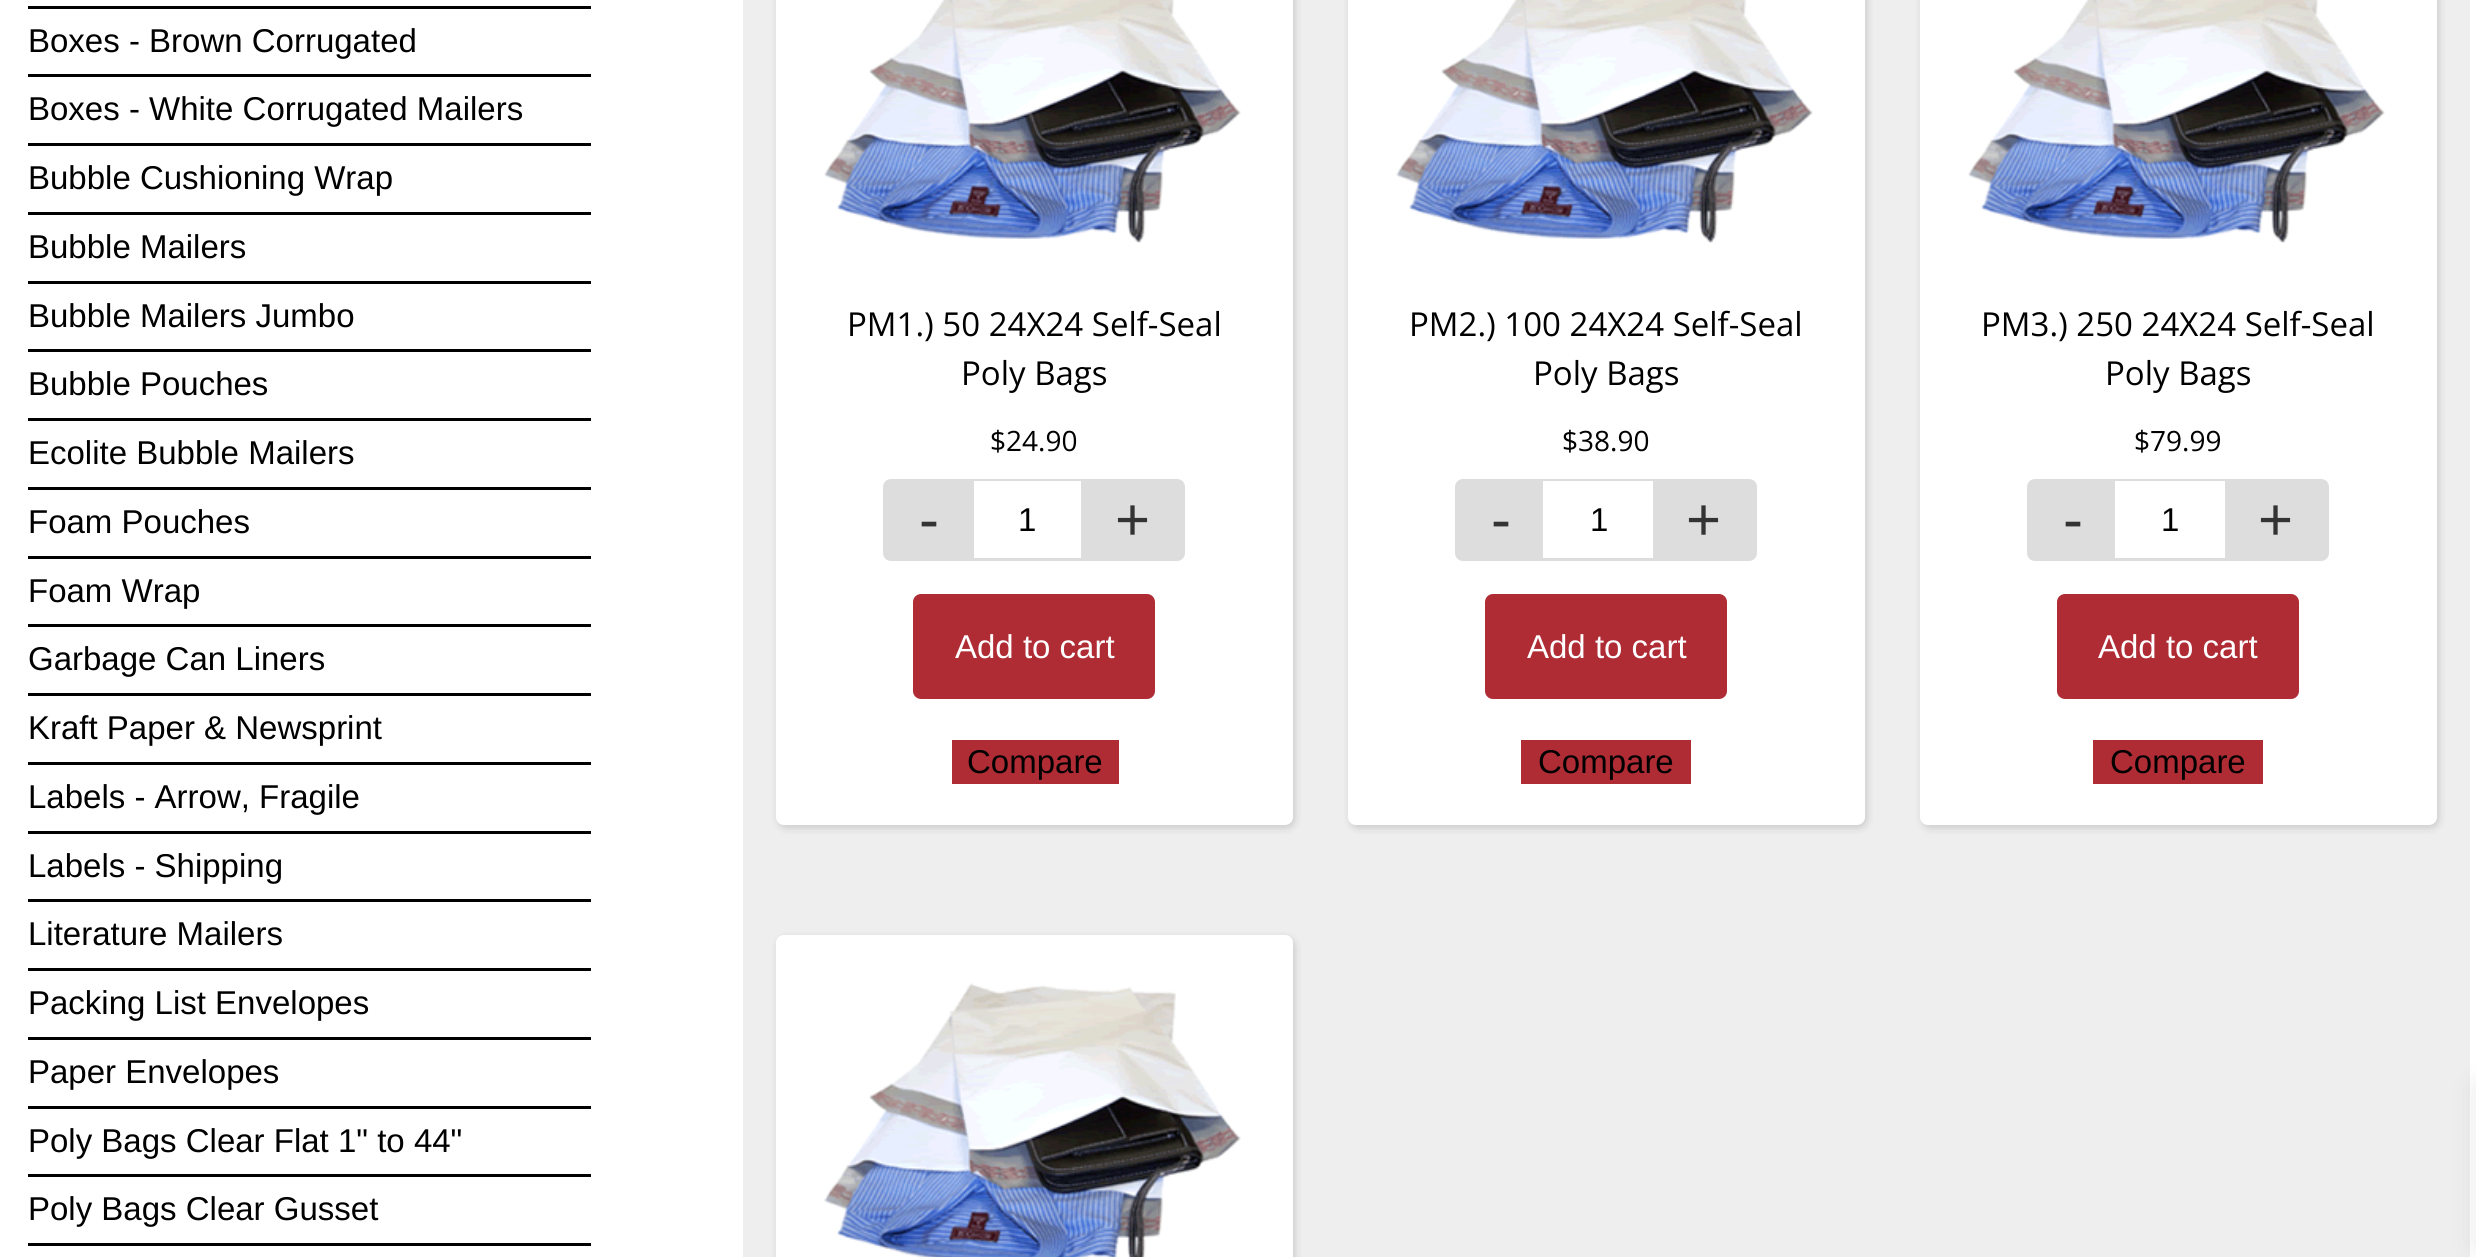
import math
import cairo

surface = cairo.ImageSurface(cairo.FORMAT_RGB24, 2476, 1257)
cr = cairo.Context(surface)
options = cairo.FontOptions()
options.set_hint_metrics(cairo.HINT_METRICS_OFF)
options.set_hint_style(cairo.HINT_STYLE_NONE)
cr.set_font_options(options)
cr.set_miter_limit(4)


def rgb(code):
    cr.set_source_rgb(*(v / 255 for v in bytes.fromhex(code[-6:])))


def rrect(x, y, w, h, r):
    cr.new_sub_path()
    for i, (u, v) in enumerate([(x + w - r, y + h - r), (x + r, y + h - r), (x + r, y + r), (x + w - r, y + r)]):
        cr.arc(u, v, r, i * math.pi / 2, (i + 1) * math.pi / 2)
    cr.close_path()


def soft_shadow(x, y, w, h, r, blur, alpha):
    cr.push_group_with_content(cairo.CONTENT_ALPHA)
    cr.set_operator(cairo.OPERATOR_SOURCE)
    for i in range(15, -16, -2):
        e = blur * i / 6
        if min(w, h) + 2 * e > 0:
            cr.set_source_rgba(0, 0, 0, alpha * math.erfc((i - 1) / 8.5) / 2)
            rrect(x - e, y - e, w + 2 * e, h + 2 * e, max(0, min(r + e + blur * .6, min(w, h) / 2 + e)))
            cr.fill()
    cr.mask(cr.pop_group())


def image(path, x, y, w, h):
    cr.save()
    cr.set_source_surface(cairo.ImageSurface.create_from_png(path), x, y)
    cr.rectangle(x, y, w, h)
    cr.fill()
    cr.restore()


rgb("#ffffff")
cr.paint()
for x, y, w, h, color in [
    (28, 6, 563, 3, "#000000"),
    (28, 74, 563, 3, "#000000"),
    (28, 143, 563, 3, "#000000"),
    (28, 212, 563, 3, "#000000"),
    (28, 281, 563, 3, "#000000"),
    (28, 349, 563, 3, "#000000"),
    (28, 418, 563, 3, "#000000"),
    (28, 487, 563, 3, "#000000"),
    (28, 556, 563, 3, "#000000"),
    (28, 624, 563, 3, "#000000"),
    (28, 693, 563, 3, "#000000"),
    (28, 762, 563, 3, "#000000"),
    (28, 831, 563, 3, "#000000"),
    (28, 899, 563, 3, "#000000"),
    (28, 968, 563, 3, "#000000"),
    (28, 1037, 563, 3, "#000000"),
    (28, 1106, 563, 3, "#000000"),
    (28, 1174, 563, 3, "#000000"),
    (28, 1243, 563, 3, "#000000"),
    (743, 0, 1727, 1257, "#eeeeee"),
]:
    rgb(color)
    cr.rectangle(x, y, w, h)
    cr.fill()
rgb("#000000")
soft_shadow(778, -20, 517, 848, 8, 4, 0.15)
rgb("#ffffff")
rrect(776, -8, 517, 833, 8)
cr.fill()
image("img/1.png", 824, 0, 417, 243)
rrect(884.5, 480.5, 299, 79, 6.5)
rgb("#dddddd")
cr.set_line_width(3)
cr.stroke()
for x, y, w, h, color in [
    (886, 482, 88, 76, "#dddddd"),
    (974, 481, 107, 1, "#ffffff"),
    (1081, 481, 102, 77, "#dddddd"),
]:
    rgb(color)
    cr.rectangle(x, y, w, h)
    cr.fill()
rgb("#b02c35")
rrect(913, 594, 242, 105, 8)
cr.fill()
cr.rectangle(952, 740, 167, 44)
cr.fill()
rgb("#000000")
soft_shadow(1350, -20, 517, 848, 8, 4, 0.15)
rgb("#ffffff")
rrect(1348, -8, 517, 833, 8)
cr.fill()
image("img/1.png", 1396, 0, 417, 243)
rrect(1456.5, 480.5, 299, 79, 6.5)
rgb("#dddddd")
cr.stroke()
for x, y, w, h, color in [
    (1458, 482, 85, 76, "#dddddd"),
    (1543, 481, 110, 1, "#ffffff"),
    (1653, 481, 102, 77, "#dddddd"),
]:
    rgb(color)
    cr.rectangle(x, y, w, h)
    cr.fill()
rgb("#b02c35")
rrect(1485, 594, 242, 105, 8)
cr.fill()
cr.rectangle(1521, 740, 170, 44)
cr.fill()
rgb("#000000")
soft_shadow(1922, -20, 517, 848, 8, 4, 0.15)
rgb("#ffffff")
rrect(1920, -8, 517, 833, 8)
cr.fill()
image("img/1.png", 1968, 0, 417, 243)
rrect(2028.5, 480.5, 299, 79, 6.5)
rgb("#dddddd")
cr.stroke()
for x, y, w, h, color in [
    (2030, 482, 85, 76, "#dddddd"),
    (2115, 481, 110, 1, "#ffffff"),
    (2225, 481, 102, 77, "#dddddd"),
]:
    rgb(color)
    cr.rectangle(x, y, w, h)
    cr.fill()
rgb("#b02c35")
rrect(2057, 594, 242, 105, 8)
cr.fill()
cr.rectangle(2093, 740, 170, 44)
cr.fill()
rgb("#000000")
soft_shadow(778, 938, 517, 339, 8, 4, 0.15)
rgb("#ffffff")
rrect(776, 935, 517, 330, 8)
cr.fill()
image("img/2.png", 824, 983, 417, 274)
rgb("#000000")
soft_shadow(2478, 1086, 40, 160, 0, 14, 0.1)
cr.select_font_face("Liberation Sans")
cr.set_font_size(33)
rgb("#000000")
for x, y, s in [
    (28, 52, "Boxes - Brown Corrugated"),
    (28, 120, "Boxes - White Corrugated Mailers"),
    (28, 189, "Bubble Cushioning Wrap"),
    (28, 258, "Bubble Mailers"),
    (28, 327, "Bubble Mailers Jumbo"),
    (28, 395, "Bubble Pouches"),
    (28, 464, "Ecolite Bubble Mailers"),
    (28, 533, "Foam Pouches"),
    (28, 602, "Foam Wrap"),
    (28, 670, "Garbage Can Liners"),
    (28, 739, "Kraft Paper & Newsprint"),
    (28, 808, "Labels - Arrow, Fragile"),
    (28, 877, "Labels - Shipping"),
    (28, 945, "Literature Mailers"),
    (28, 1014, "Packing List Envelopes"),
    (28, 1083, "Paper Envelopes"),
    (28, 1152, "Poly Bags Clear Flat 1\" to 44\""),
    (28, 1220, "Poly Bags Clear Gusset"),
]:
    cr.move_to(x, y)
    cr.show_text(s)
cr.select_font_face("Open Sans")
cr.move_to(847, 336)
cr.show_text("PM1.) 50 24X24 Self-Seal")
cr.move_to(961, 385)
cr.show_text("Poly Bags")
cr.set_font_size(28)
cr.move_to(990, 451)
cr.show_text("$24.90")
cr.select_font_face("Liberation Sans")
cr.set_font_size(60)
rgb("#333333")
cr.move_to(919, 540)
cr.show_text("-")
cr.set_font_size(33)
rgb("#000000")
cr.move_to(1018, 531)
cr.show_text("1")
cr.set_font_size(60)
rgb("#333333")
cr.move_to(1115, 540)
cr.show_text("+")
cr.set_font_size(33)
rgb("#ffffff")
cr.move_to(955, 658)
cr.show_text("Add to cart")
rgb("#000000")
cr.move_to(967, 773)
cr.show_text("Compare")
cr.select_font_face("Open Sans")
cr.move_to(1409, 336)
cr.show_text("PM2.) 100 24X24 Self-Seal")
cr.move_to(1533, 385)
cr.show_text("Poly Bags")
cr.set_font_size(28)
cr.move_to(1562, 451)
cr.show_text("$38.90")
cr.select_font_face("Liberation Sans")
cr.set_font_size(60)
rgb("#333333")
cr.move_to(1491, 540)
cr.show_text("-")
cr.set_font_size(33)
rgb("#000000")
cr.move_to(1590, 531)
cr.show_text("1")
cr.set_font_size(60)
rgb("#333333")
cr.move_to(1686, 540)
cr.show_text("+")
cr.set_font_size(33)
rgb("#ffffff")
cr.move_to(1527, 658)
cr.show_text("Add to cart")
rgb("#000000")
cr.move_to(1538, 773)
cr.show_text("Compare")
cr.select_font_face("Open Sans")
cr.move_to(1981, 336)
cr.show_text("PM3.) 250 24X24 Self-Seal")
cr.move_to(2105, 385)
cr.show_text("Poly Bags")
cr.set_font_size(28)
cr.move_to(2134, 451)
cr.show_text("$79.99")
cr.select_font_face("Liberation Sans")
cr.set_font_size(60)
rgb("#333333")
cr.move_to(2063, 540)
cr.show_text("-")
cr.set_font_size(33)
rgb("#000000")
cr.move_to(2161, 531)
cr.show_text("1")
cr.set_font_size(60)
rgb("#333333")
cr.move_to(2258, 540)
cr.show_text("+")
cr.set_font_size(33)
rgb("#ffffff")
cr.move_to(2098, 658)
cr.show_text("Add to cart")
rgb("#000000")
cr.move_to(2110, 773)
cr.show_text("Compare")
surface.write_to_png("page.png")
